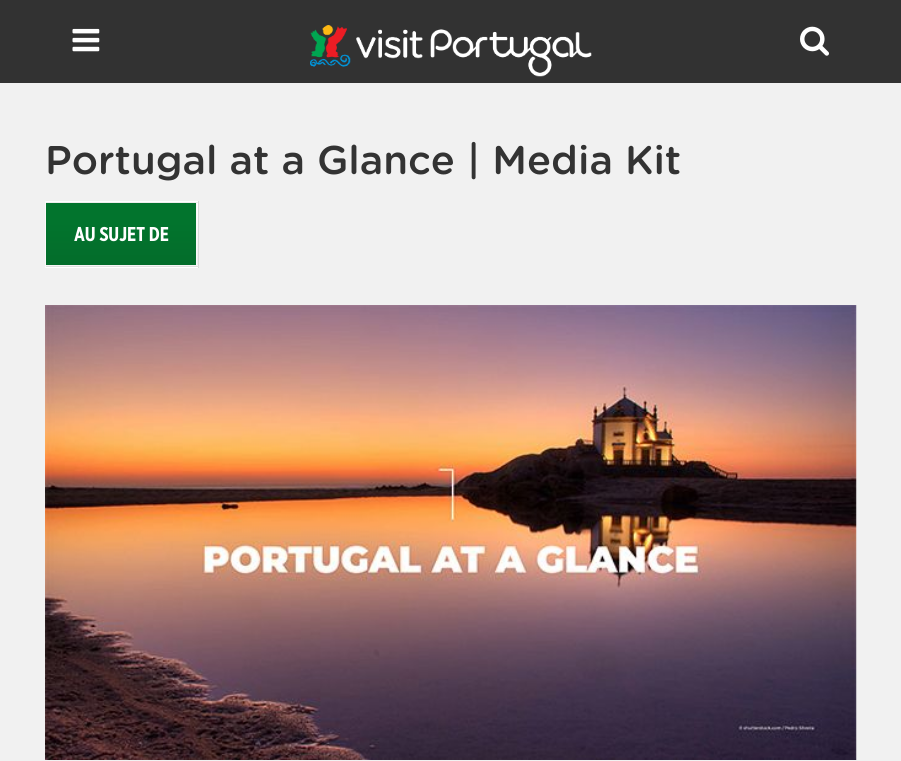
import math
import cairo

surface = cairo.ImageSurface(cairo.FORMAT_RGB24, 901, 761)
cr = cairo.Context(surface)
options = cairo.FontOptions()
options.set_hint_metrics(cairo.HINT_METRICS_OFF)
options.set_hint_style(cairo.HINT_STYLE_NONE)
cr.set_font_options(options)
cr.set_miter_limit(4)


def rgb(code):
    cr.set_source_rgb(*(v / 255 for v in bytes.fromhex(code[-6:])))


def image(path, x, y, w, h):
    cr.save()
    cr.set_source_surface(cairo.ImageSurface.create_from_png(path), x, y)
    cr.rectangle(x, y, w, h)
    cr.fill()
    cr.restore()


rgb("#f1f1f1")
cr.paint()
rgb("#323232")
cr.rectangle(0, 0, 901, 83)
cr.fill()
image("img/1.png", 72, 28, 28, 24)
image("img/2.png", 310, 25, 282, 52)
image("img/3.png", 800, 26, 29, 30)
gradient = cairo.LinearGradient(122, 139, 122, 203)
gradient.add_color_stop_rgba(0.15, 1, 1, 1, 1)
gradient.add_color_stop_rgba(1, 0.929, 0.929, 0.929, 1)
cr.set_source(gradient)
cr.rectangle(45, 202, 154, 1)
cr.fill()
gradient = cairo.LinearGradient(122, 203, 122, 266)
gradient.add_color_stop_rgba(0.15, 1, 1, 1, 1)
gradient.add_color_stop_rgba(1, 0.929, 0.929, 0.929, 1)
cr.set_source(gradient)
cr.rectangle(197, 203, 1, 62)
cr.fill()
gradient = cairo.LinearGradient(122, 266, 122, 330)
gradient.add_color_stop_rgba(0.15, 1, 1, 1, 1)
gradient.add_color_stop_rgba(1, 0.929, 0.929, 0.929, 1)
cr.set_source(gradient)
cr.rectangle(45, 267, 154, 1)
cr.fill()
for x, y, w, h, color in [
    (45, 201, 154, 1, "#ffffff"),
    (198, 201, 1, 67, "#d9d9d9"),
    (45, 266, 154, 1, "#e0e0e0"),
    (45, 201, 1, 67, "#fafafa"),
    (196, 203, 1, 63, "#fafafa"),
    (46, 265, 152, 1, "#f5f5f5"),
]:
    rgb(color)
    cr.rectangle(x, y, w, h)
    cr.fill()
gradient = cairo.LinearGradient(121, 203, 121, 265)
gradient.add_color_stop_rgba(0.3, 0.008, 0.455, 0.176, 1)
gradient.add_color_stop_rgba(1, 0.012, 0.427, 0.169, 1)
cr.set_source(gradient)
cr.rectangle(46, 203, 150, 62)
cr.fill()
image("img/4.png", 45, 305, 812, 455)
cr.select_font_face("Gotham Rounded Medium")
cr.set_font_size(40)
rgb("#333333")
cr.move_to(45, 174)
cr.show_text("Portugal at a Glance | Media Kit")
cr.select_font_face("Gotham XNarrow", cairo.FONT_SLANT_NORMAL, cairo.FONT_WEIGHT_BOLD)
cr.set_font_size(20)
rgb("#ffffff")
cr.move_to(74, 241)
cr.show_text("AU SUJET DE")
surface.write_to_png("page.png")
